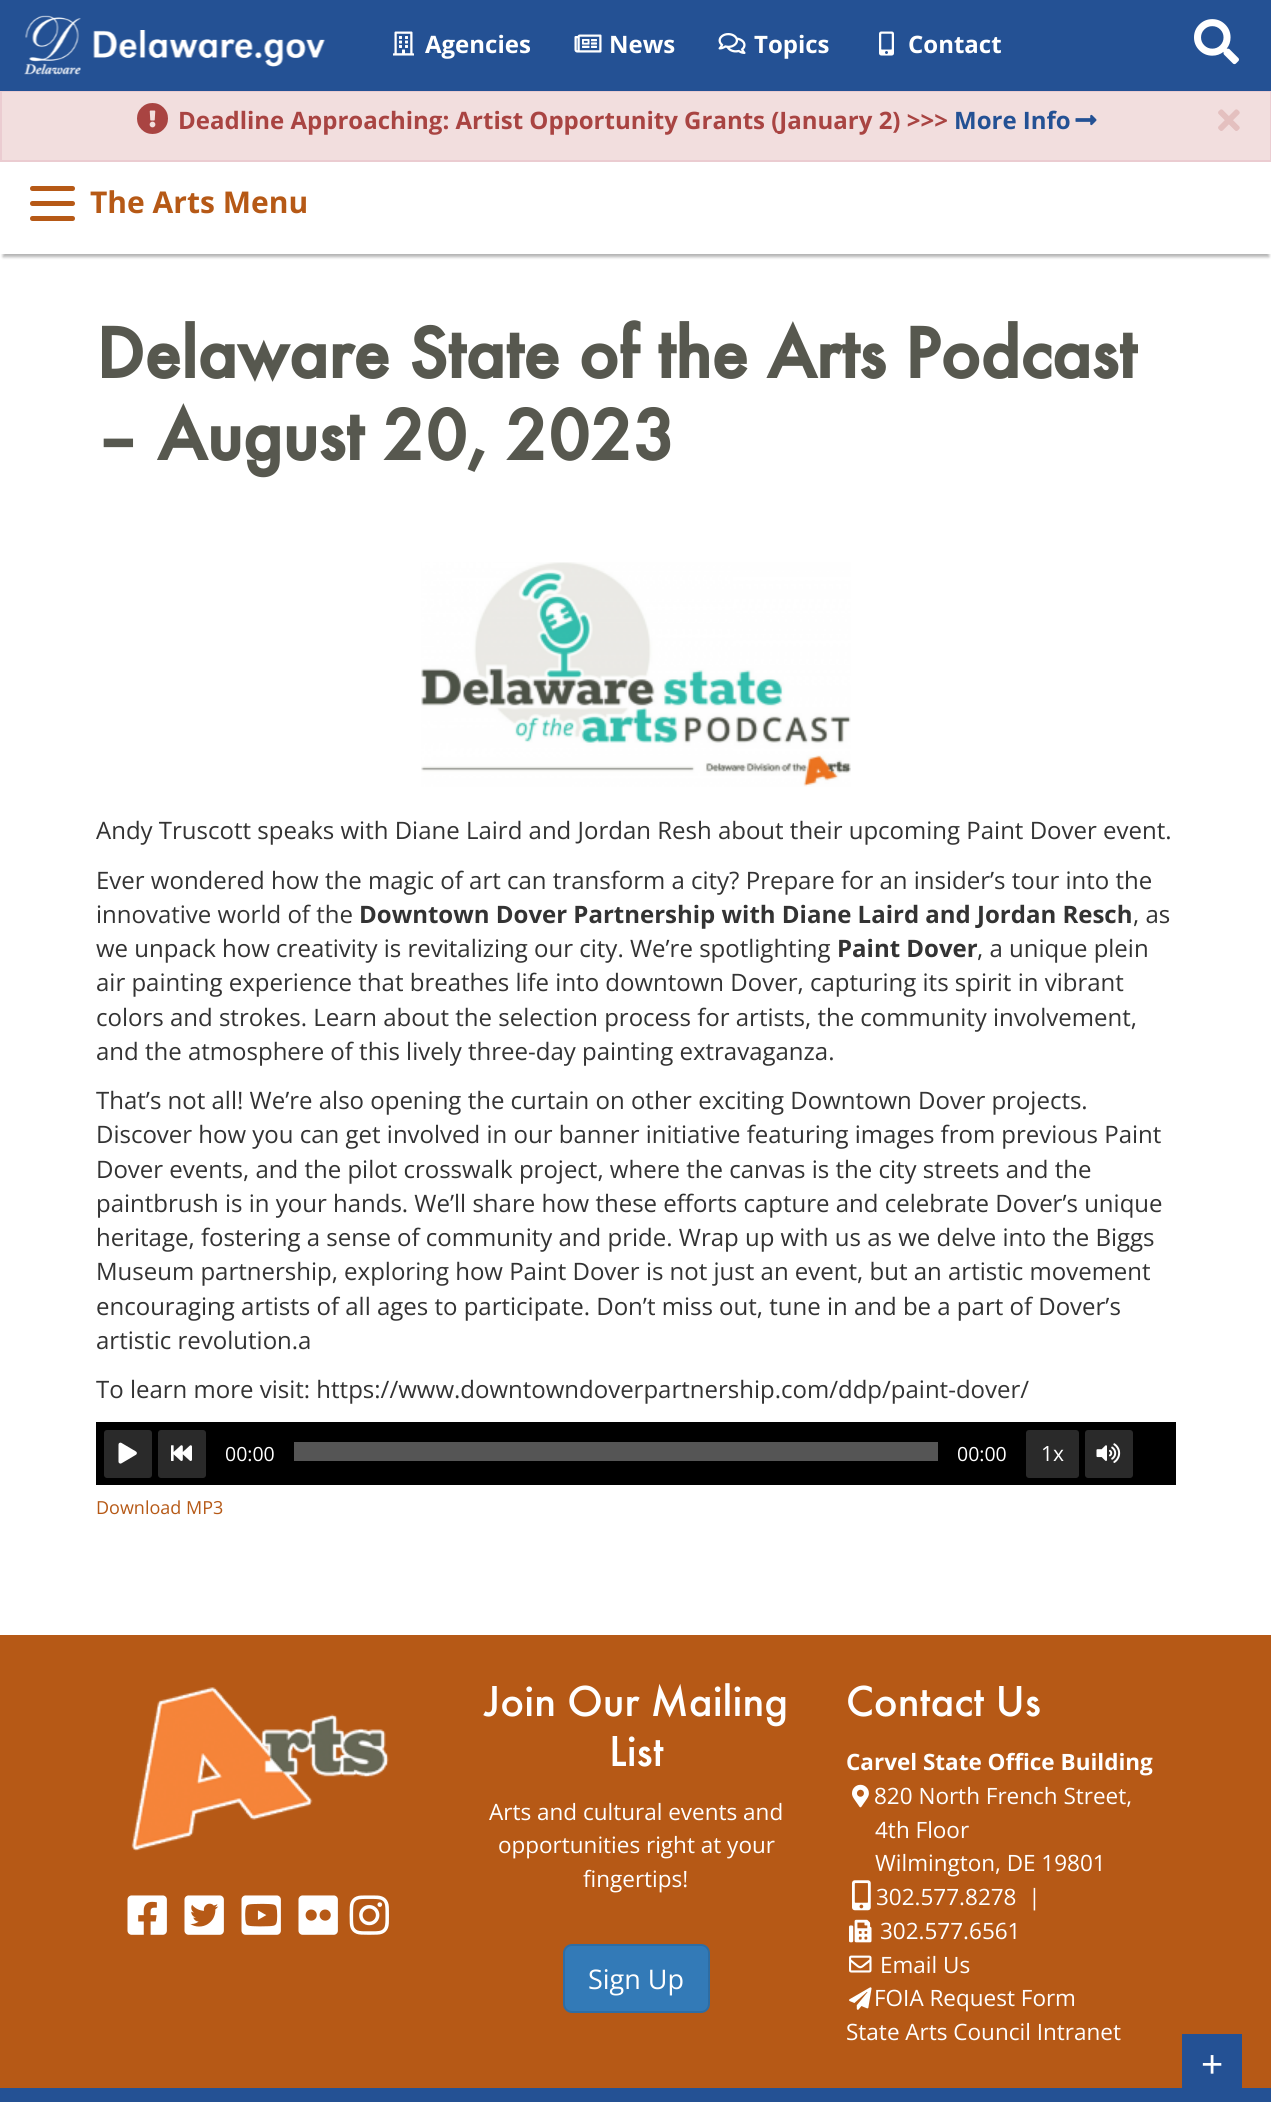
import math
import cairo

surface = cairo.ImageSurface(cairo.FORMAT_RGB24, 1271, 2102)
cr = cairo.Context(surface)
options = cairo.FontOptions()
options.set_hint_metrics(cairo.HINT_METRICS_OFF)
options.set_hint_style(cairo.HINT_STYLE_NONE)
cr.set_font_options(options)
cr.set_miter_limit(4)


def rgb(code):
    cr.set_source_rgb(*(v / 255 for v in bytes.fromhex(code[-6:])))


def rrect(x, y, w, h, r):
    cr.new_sub_path()
    for i, (u, v) in enumerate([(x + w - r, y + h - r), (x + r, y + h - r), (x + r, y + r), (x + w - r, y + r)]):
        cr.arc(u, v, r, i * math.pi / 2, (i + 1) * math.pi / 2)
    cr.close_path()


def soft_shadow(x, y, w, h, r, blur, alpha):
    cr.push_group_with_content(cairo.CONTENT_ALPHA)
    cr.set_operator(cairo.OPERATOR_SOURCE)
    for i in range(15, -16, -2):
        e = blur * i / 6
        if min(w, h) + 2 * e > 0:
            cr.set_source_rgba(0, 0, 0, alpha * math.erfc((i - 1) / 8.5) / 2)
            rrect(x - e, y - e, w + 2 * e, h + 2 * e, max(0, min(r + e + blur * .6, min(w, h) / 2 + e)))
            cr.fill()
    cr.mask(cr.pop_group())


def image(path, x, y, w, h):
    cr.save()
    cr.set_source_surface(cairo.ImageSurface.create_from_png(path), x, y)
    cr.rectangle(x, y, w, h)
    cr.fill()
    cr.restore()


rgb("#ffffff")
cr.paint()
rgb("#f2dede")
cr.rectangle(1, 91, 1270, 70)
cr.fill_preserve()
rgb("#ebccd1")
cr.stroke()
rgb("#245194")
cr.rectangle(0, 0, 1271, 91)
cr.fill()
image("img/1.png", 24, 15, 57, 60)
image("img/2.png", 93, 30, 233, 37)
image("img/3.png", 393, 31, 21, 25)
image("img/4.png", 574, 34, 28, 19)
image("img/5.png", 718, 33, 28, 21)
image("img/6.png", 879, 31, 15, 25)
image("img/7.png", 1194, 19, 45, 46)
image("img/8.png", 137, 103, 31, 31)
image("img/9.png", 1075, 114, 22, 12)
image("img/10.png", 1218, 109, 22, 22)
rgb("#000000")
soft_shadow(3, 171, 1266, 86, 0, 1.5, 0.3)
rgb("#ffffff")
cr.rectangle(0, 168, 1271, 86)
cr.fill()
rgb("#b65916")
cr.new_path()
cr.move_to(32.5, 186)
cr.line_to(53, 186)
cr.line_to(53, 191)
cr.line_to(32.5, 191)
cr.curve_to(31, 191, 30, 190, 30, 188.5)
cr.curve_to(30, 187, 31, 186, 32.5, 186)
cr.close_path()
cr.fill()
cr.new_path()
cr.move_to(53, 186)
cr.line_to(72.5, 186)
cr.curve_to(74, 186, 75, 187, 75, 188.5)
cr.curve_to(75, 190, 74, 191, 72.5, 191)
cr.line_to(53, 191)
cr.close_path()
cr.fill()
cr.new_path()
cr.move_to(32.5, 201)
cr.line_to(53, 201)
cr.line_to(53, 206)
cr.line_to(32.5, 206)
cr.curve_to(31, 206, 30, 205, 30, 203.5)
cr.curve_to(30, 202, 31, 201, 32.5, 201)
cr.close_path()
cr.fill()
cr.new_path()
cr.move_to(53, 201)
cr.line_to(72.5, 201)
cr.curve_to(74, 201, 75, 202, 75, 203.5)
cr.curve_to(75, 205, 74, 206, 72.5, 206)
cr.line_to(53, 206)
cr.close_path()
cr.fill()
cr.new_path()
cr.move_to(32.5, 216)
cr.line_to(53, 216)
cr.line_to(53, 221)
cr.line_to(32.5, 221)
cr.curve_to(31, 221, 30, 220, 30, 218.5)
cr.curve_to(30, 217, 31, 216, 32.5, 216)
cr.close_path()
cr.fill()
cr.new_path()
cr.move_to(53, 216)
cr.line_to(72.5, 216)
cr.curve_to(74, 216, 75, 217, 75, 218.5)
cr.curve_to(75, 220, 74, 221, 72.5, 221)
cr.line_to(53, 221)
cr.close_path()
cr.fill()
image("img/11.png", 421, 562, 430, 225)
rgb("#000000")
cr.rectangle(96, 1422, 1080, 63)
cr.fill()
rgb("#2a2a2a")
rrect(104, 1430, 48, 48, 3)
cr.fill()
image("img/12.png", 118, 1442, 19, 22)
rrect(158, 1430, 48, 48, 3)
cr.fill()
image("img/13.png", 171, 1445, 21, 16)
rgb("#555555")
cr.rectangle(294, 1442, 644, 19)
cr.fill()
rgb("#2a2a2a")
rrect(1026, 1430, 53, 48, 3)
cr.fill()
rrect(1085, 1430, 48, 48, 3)
cr.fill()
image("img/14.png", 1096, 1443, 25, 20)
rgb("#b65916")
cr.rectangle(0, 1635, 1271, 453)
cr.fill()
rgb("#245194")
cr.rectangle(0, 2088, 1271, 14)
cr.fill()
image("img/15.png", 131, 1687, 258, 164)
image("img/16.png", 127, 1895, 40, 40)
image("img/17.png", 184, 1895, 40, 40)
image("img/18.png", 241, 1895, 40, 40)
image("img/19.png", 298, 1895, 40, 40)
image("img/20.png", 349, 1895, 40, 40)
rgb("#337ab7")
rrect(564, 1945, 145, 67, 8)
cr.fill_preserve()
rgb("#2e6da4")
cr.stroke()
image("img/21.png", 852, 1784, 17, 24)
image("img/22.png", 852, 1880, 19, 31)
image("img/23.png", 849, 1919, 23, 24)
image("img/24.png", 849, 1955, 23, 18)
image("img/25.png", 849, 1987, 23, 23)
rgb("#245194")
cr.rectangle(1182, 2034, 60, 54)
cr.fill()
cr.select_font_face("Open Sans", cairo.FONT_SLANT_NORMAL, cairo.FONT_WEIGHT_BOLD)
cr.set_font_size(24)
rgb("#ffffff")
for x, y, s in [
    (425, 53, "Agencies"),
    (609, 53, "News"),
    (754, 53, "Topics"),
    (908, 53, "Contact"),
]:
    cr.move_to(x, y)
    cr.show_text(s)
rgb("#a94442")
cr.move_to(178, 129)
cr.show_text("Deadline Approaching: Artist Opportunity Grants (January 2) >>>")
rgb("#245194")
cr.move_to(954, 129)
cr.show_text("More Info")
cr.set_font_size(30)
rgb("#b65916")
cr.move_to(90, 213)
cr.show_text("The Arts Menu")
cr.select_font_face("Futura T", cairo.FONT_SLANT_NORMAL, cairo.FONT_WEIGHT_BOLD)
cr.set_font_size(75)
rgb("#57584f")
cr.move_to(96, 378)
cr.show_text("Delaware State of the Arts Podcast")
cr.move_to(96, 460)
cr.show_text("– August 20, 2023")
cr.select_font_face("Open Sans")
cr.set_font_size(24)
rgb("#333333")
for x, y, s in [
    (96, 839, "Andy Truscott speaks with Diane Laird and Jordan Resh about their upcoming Paint Dover event."),
    (96, 889, "Ever wondered how the magic of art can transform a city? Prepare for an insider’s tour into the"),
    (96, 923, "innovative world of the"),
]:
    cr.move_to(x, y)
    cr.show_text(s)
cr.select_font_face("Open Sans", cairo.FONT_SLANT_NORMAL, cairo.FONT_WEIGHT_BOLD)
cr.move_to(359, 923)
cr.show_text("Downtown Dover Partnership with Diane Laird and Jordan Resch")
cr.select_font_face("Open Sans")
cr.move_to(1133, 923)
cr.show_text(", as")
cr.move_to(96, 957)
cr.show_text("we unpack how creativity is revitalizing our city. We’re spotlighting")
cr.select_font_face("Open Sans", cairo.FONT_SLANT_NORMAL, cairo.FONT_WEIGHT_BOLD)
cr.move_to(837, 957)
cr.show_text("Paint Dover")
cr.select_font_face("Open Sans")
for x, y, s in [
    (977, 957, ", a unique plein"),
    (96, 991, "air painting experience that breathes life into downtown Dover, capturing its spirit in vibrant"),
    (96, 1026, "colors and strokes. Learn about the selection process for artists, the community involvement,"),
    (96, 1060, "and the atmosphere of this lively three-day painting extravaganza."),
    (96, 1109, "That’s not all! We’re also opening the curtain on other exciting Downtown Dover projects."),
    (96, 1143, "Discover how you can get involved in our banner initiative featuring images from previous Paint"),
    (96, 1178, "Dover events, and the pilot crosswalk project, where the canvas is the city streets and the"),
    (96, 1212, "paintbrush is in your hands. We’ll share how these efforts capture and celebrate Dover’s unique"),
    (96, 1246, "heritage, fostering a sense of community and pride. Wrap up with us as we delve into the Biggs"),
    (96, 1280, "Museum partnership, exploring how Paint Dover is not just an event, but an artistic movement"),
    (96, 1315, "encouraging artists of all ages to participate. Don’t miss out, tune in and be a part of Dover’s"),
    (96, 1349, "artistic revolution.a"),
    (96, 1398, "To learn more visit: https://www.downtowndoverpartnership.com/ddp/paint-dover/"),
]:
    cr.move_to(x, y)
    cr.show_text(s)
cr.set_font_size(19.5)
rgb("#ffffff")
cr.move_to(225, 1461)
cr.show_text("00:00")
cr.move_to(957, 1461)
cr.show_text("00:00")
cr.set_font_size(21)
cr.move_to(1041, 1461)
cr.show_text("1x")
cr.set_font_size(18)
rgb("#b65916")
cr.move_to(96, 1514)
cr.show_text("Download MP3")
cr.select_font_face("Futura T Medium")
cr.set_font_size(45)
rgb("#ffffff")
cr.move_to(484, 1716)
cr.show_text("Join Our Mailing")
cr.move_to(609, 1766)
cr.show_text("List")
cr.select_font_face("Open Sans")
cr.set_font_size(22.5)
for x, y, s in [
    (489, 1820, "Arts and cultural events and"),
    (498, 1853, "opportunities right at your"),
    (583, 1887, "fingertips!"),
]:
    cr.move_to(x, y)
    cr.show_text(s)
cr.set_font_size(27)
cr.move_to(588, 1989)
cr.show_text("Sign Up")
cr.select_font_face("Futura T Medium")
cr.set_font_size(45)
cr.move_to(846, 1716)
cr.show_text("Contact Us")
cr.select_font_face("Open Sans", cairo.FONT_SLANT_NORMAL, cairo.FONT_WEIGHT_BOLD)
cr.set_font_size(22.5)
cr.move_to(846, 1770)
cr.show_text("Carvel State Office Building")
cr.select_font_face("Open Sans")
for x, y, s in [
    (874, 1804, "820 North French Street,"),
    (875, 1838, "4th Floor"),
    (875, 1871, "Wilmington, DE 19801"),
    (876, 1905, "302.577.8278  |"),
    (880, 1939, "302.577.6561"),
    (880, 1973, "Email Us"),
    (874, 2006, "FOIA Request Form"),
    (846, 2040, "State Arts Council Intranet"),
]:
    cr.move_to(x, y)
    cr.show_text(s)
cr.select_font_face("Liberation Sans")
cr.set_font_size(38)
cr.move_to(1201, 2077)
cr.show_text("+")
surface.write_to_png("page.png")
